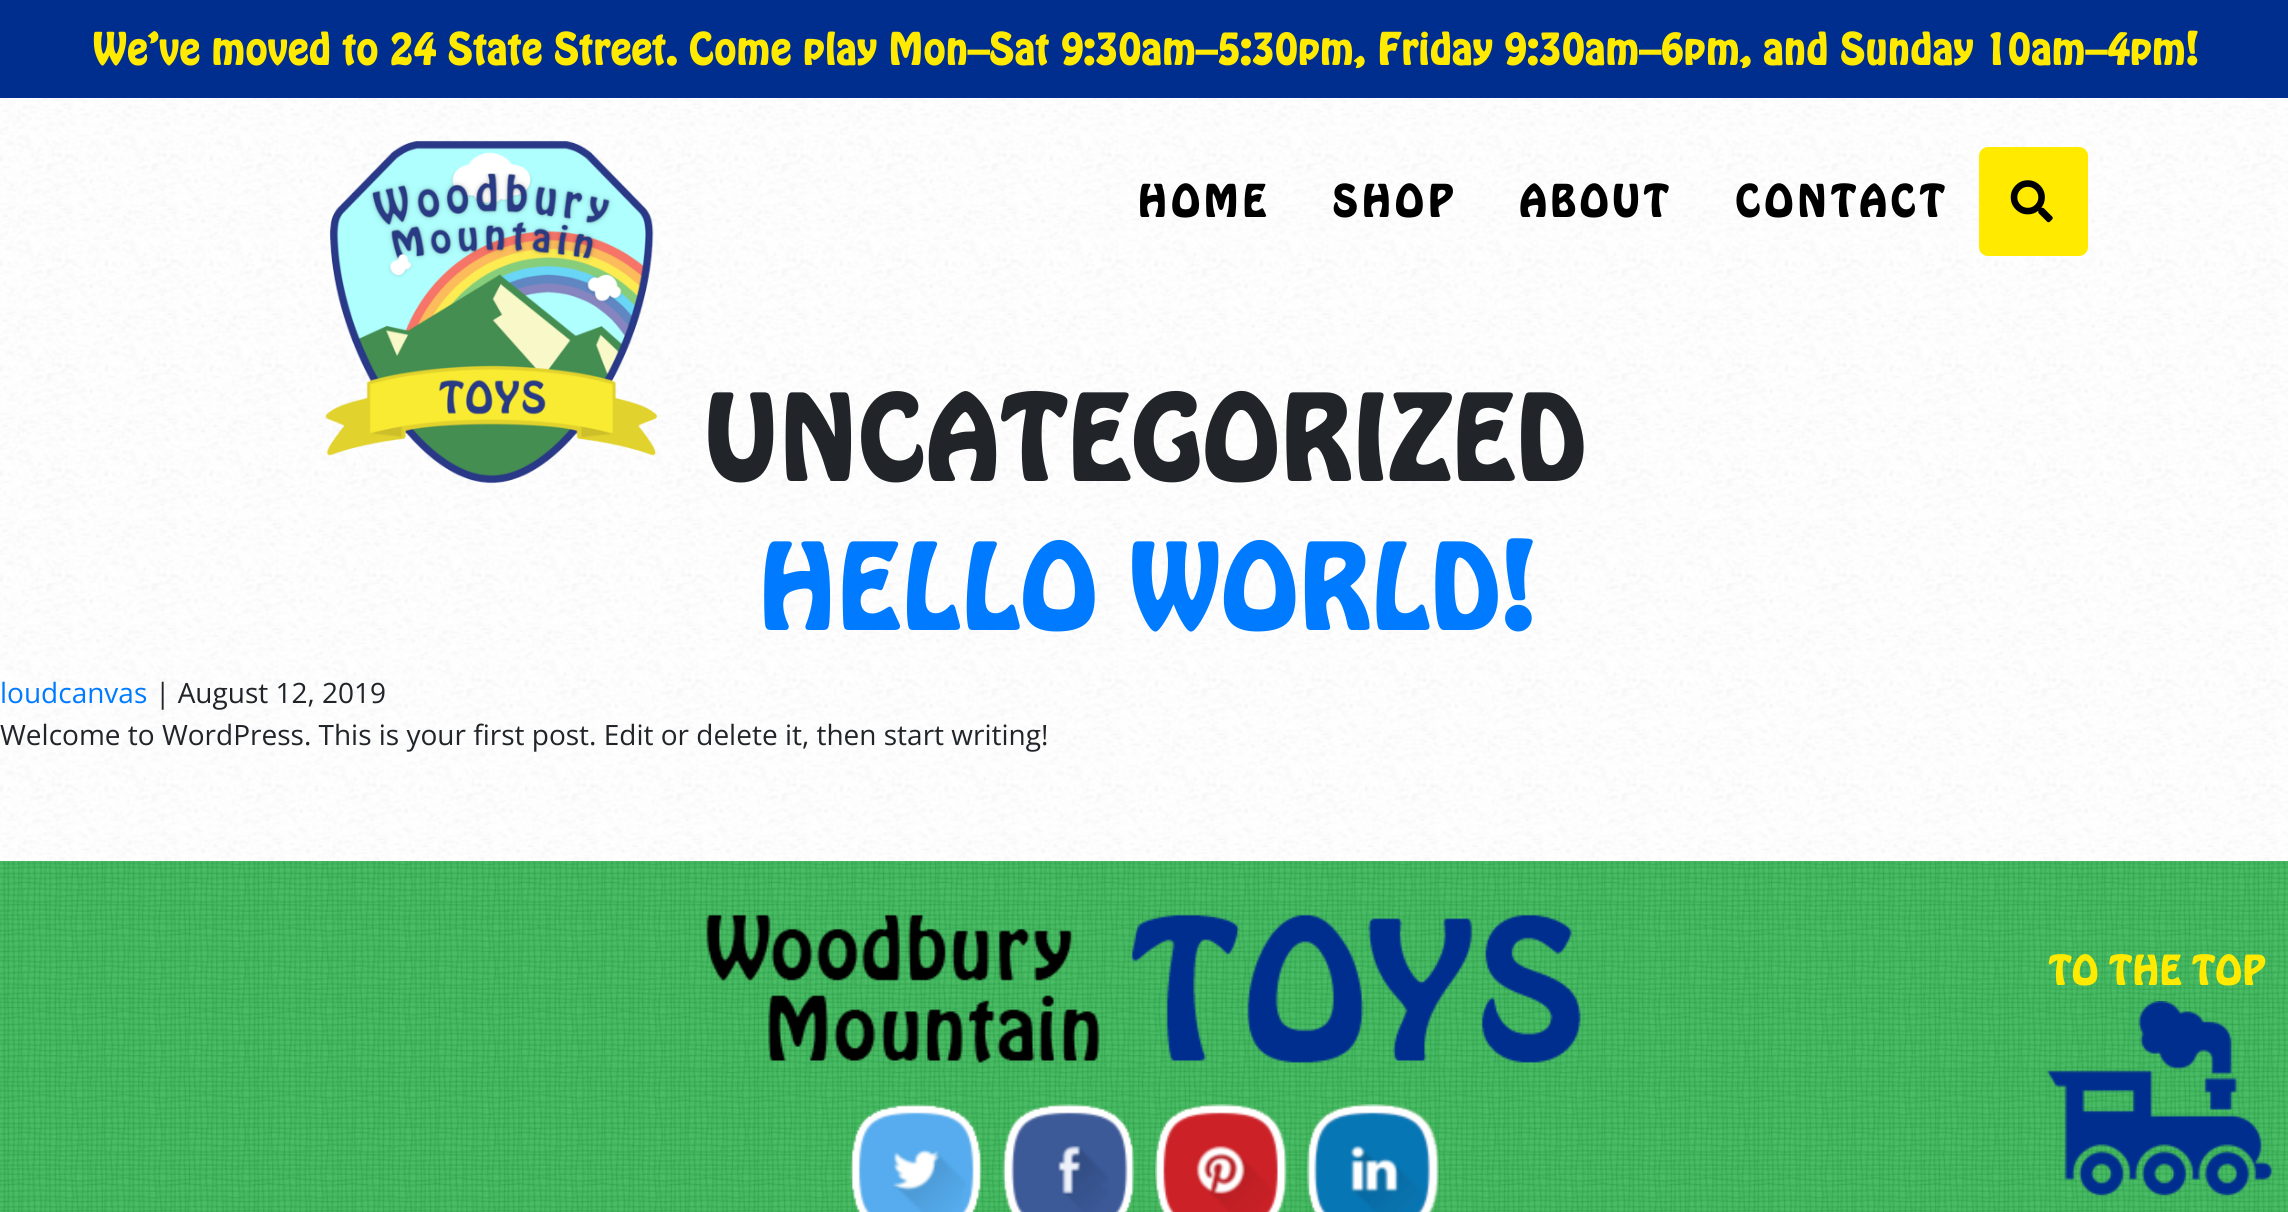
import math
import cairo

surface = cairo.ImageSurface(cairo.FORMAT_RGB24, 2288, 1212)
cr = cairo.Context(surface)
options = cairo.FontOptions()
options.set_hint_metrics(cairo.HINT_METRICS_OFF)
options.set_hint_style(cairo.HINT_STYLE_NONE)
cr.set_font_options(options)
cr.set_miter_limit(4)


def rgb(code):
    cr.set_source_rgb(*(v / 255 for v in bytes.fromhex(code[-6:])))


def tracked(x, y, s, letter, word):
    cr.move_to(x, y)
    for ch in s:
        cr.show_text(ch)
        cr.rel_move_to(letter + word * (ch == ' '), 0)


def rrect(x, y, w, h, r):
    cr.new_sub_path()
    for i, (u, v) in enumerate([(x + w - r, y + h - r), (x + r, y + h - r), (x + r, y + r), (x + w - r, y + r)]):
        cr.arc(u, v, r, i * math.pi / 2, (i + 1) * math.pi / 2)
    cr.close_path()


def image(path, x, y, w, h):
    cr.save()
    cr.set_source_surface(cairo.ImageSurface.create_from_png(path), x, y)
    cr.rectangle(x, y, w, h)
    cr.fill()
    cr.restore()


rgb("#ffffff")
cr.paint()
image("img/1.png", 0, 98, 2288, 763)
rgb("#002e8f")
cr.rectangle(0, 0, 2288, 98)
cr.fill()
image("img/2.png", 325, 140, 333, 344)
rgb("#ffea00")
rrect(1979, 147, 109, 109, 9)
cr.fill()
image("img/3.png", 2010, 180, 43, 43)
image("img/4.png", 0, 861, 2288, 351)
image("img/5.png", 706, 914, 875, 149)
image("img/6.png", 850, 1104, 132, 108)
image("img/7.png", 1002, 1104, 132, 108)
image("img/8.png", 1155, 1104, 132, 108)
image("img/9.png", 1307, 1104, 132, 108)
image("img/10.png", 2047, 1001, 225, 195)
cr.select_font_face("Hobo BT", cairo.FONT_SLANT_NORMAL, cairo.FONT_WEIGHT_BOLD)
cr.set_font_size(42)
cr.move_to(92, 65)
cr.show_text("We’ve moved to 24 State Street. Come play Mon–Sat 9:30am–5:30pm, Friday 9:30am–6pm, and Sunday 10am–4pm!")
rgb("#000000")
for x, y, s in [
    (1137, 217, "HOME"),
    (1332, 217, "SHOP"),
    (1519, 217, "ABOUT"),
    (1735, 217, "CONTACT"),
]:
    tracked(x, y, s, 3.5, 0)
cr.set_font_size(112)
rgb("#212529")
cr.move_to(703, 481)
cr.show_text("UNCATEGORIZED")
rgb("#007bff")
cr.move_to(756, 630)
cr.show_text("HELLO WORLD!")
cr.select_font_face("Open Sans")
cr.set_font_size(28)
cr.move_to(0, 703)
cr.show_text("loudcanvas")
rgb("#212529")
cr.move_to(155, 703)
cr.show_text("| August 12, 2019")
cr.move_to(0, 745)
cr.show_text("Welcome to WordPress. This is your first post. Edit or delete it, then start writing!")
cr.select_font_face("Hobo BT", cairo.FONT_SLANT_NORMAL, cairo.FONT_WEIGHT_BOLD)
cr.set_font_size(38.5)
rgb("#ffea00")
cr.move_to(2048, 985)
cr.show_text("TO THE TOP")
surface.write_to_png("page.png")
